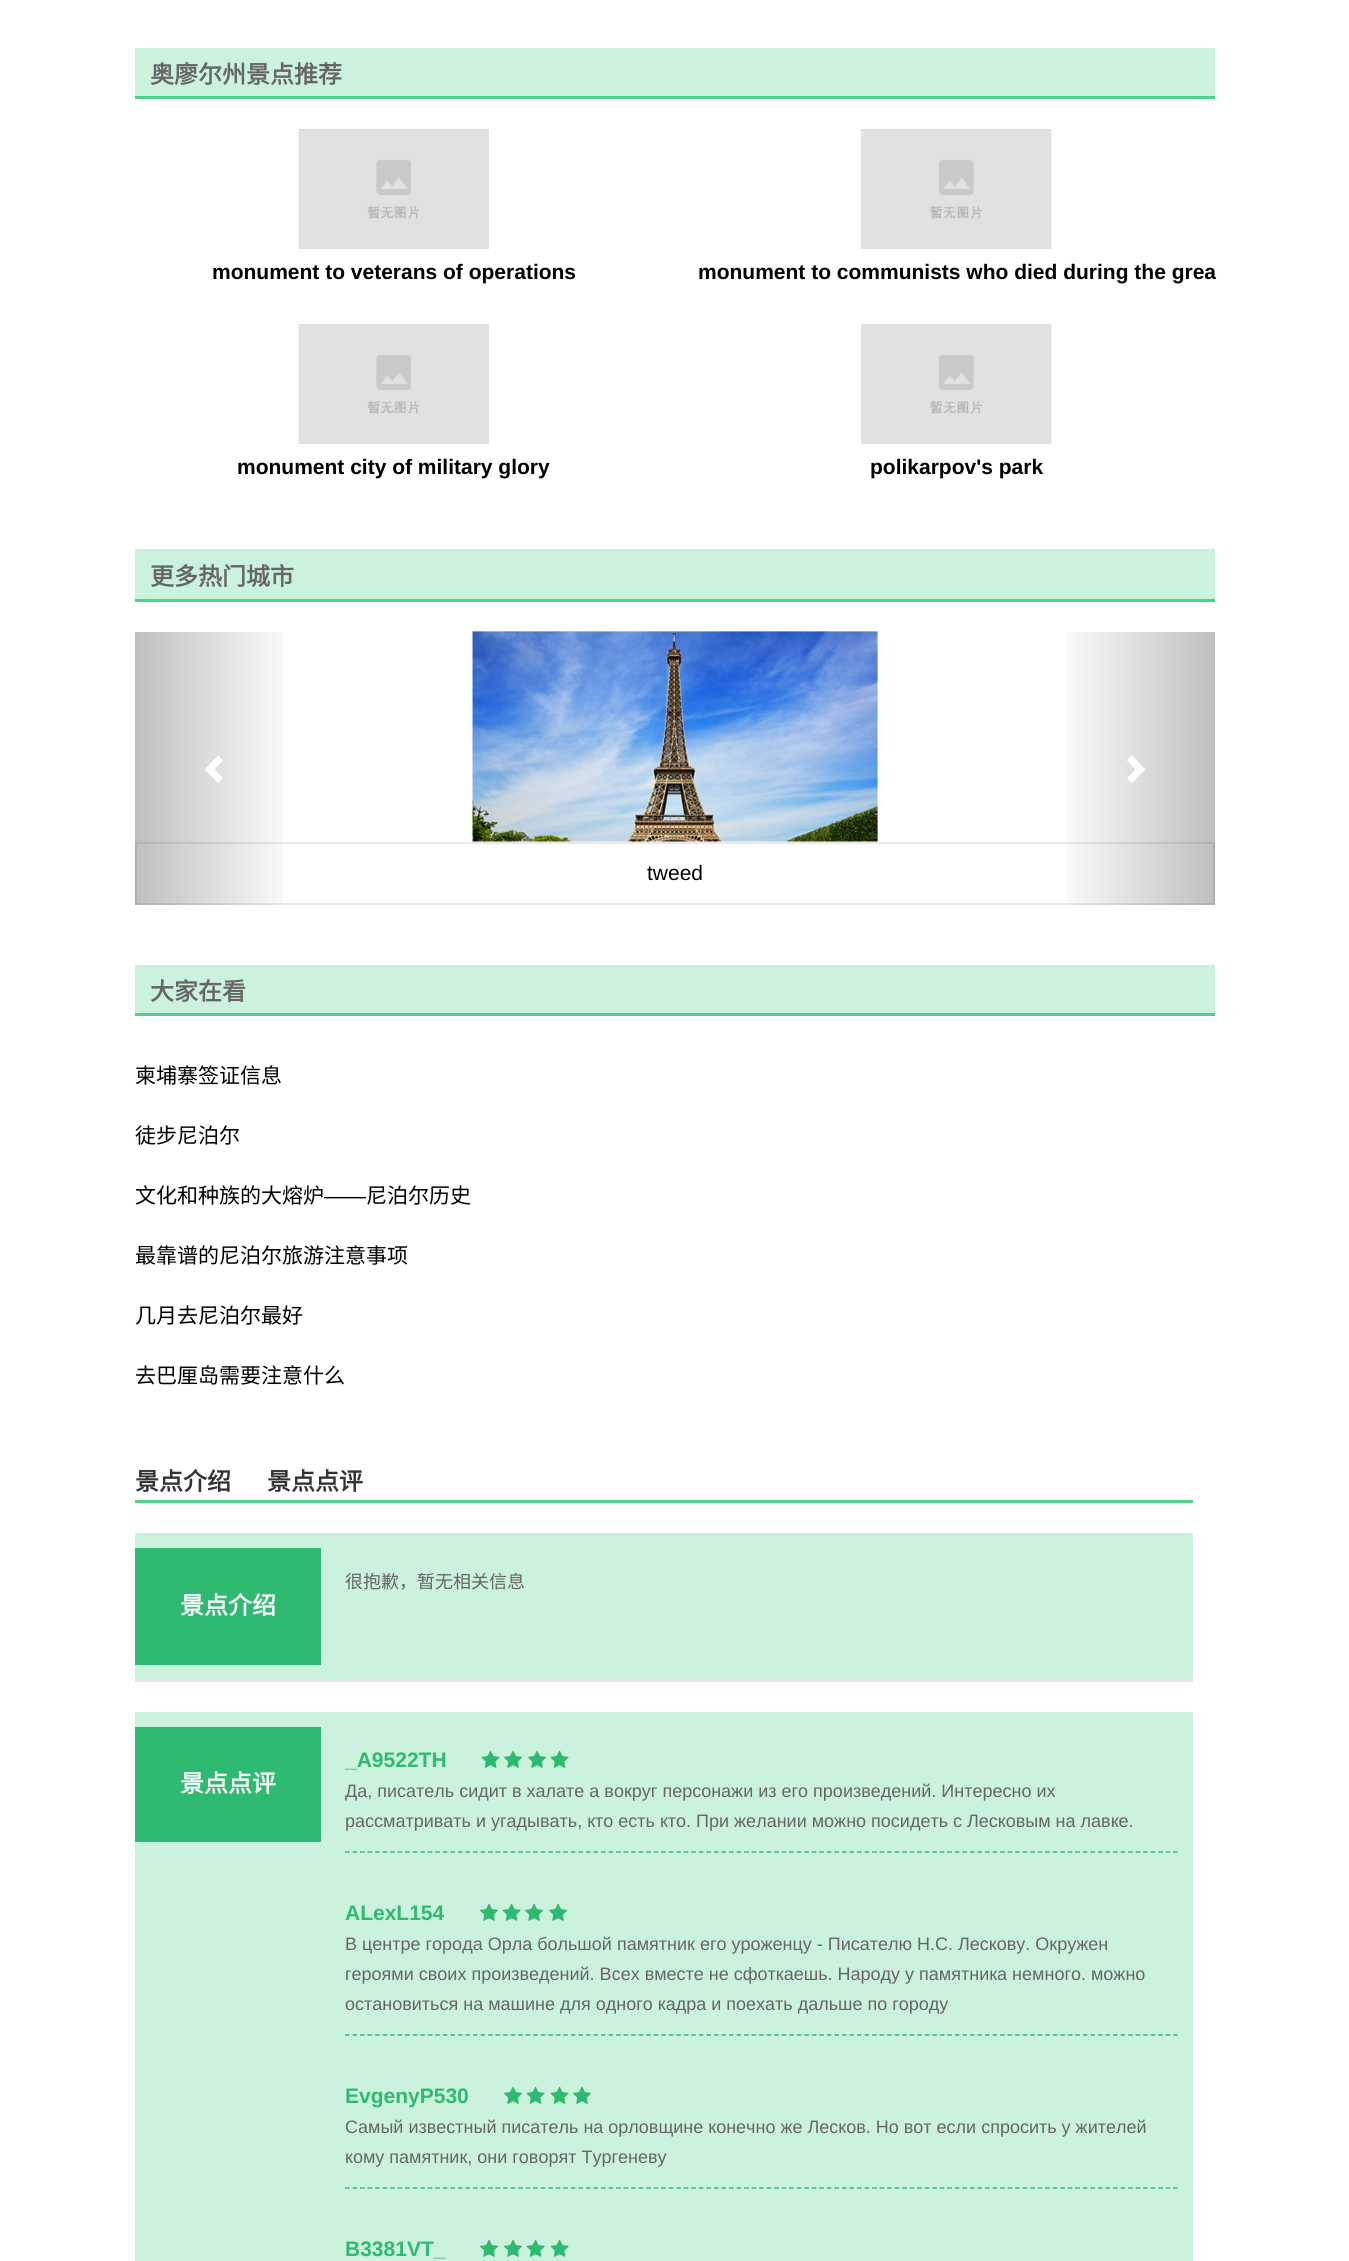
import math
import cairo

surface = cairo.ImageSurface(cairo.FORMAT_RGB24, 1349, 2261)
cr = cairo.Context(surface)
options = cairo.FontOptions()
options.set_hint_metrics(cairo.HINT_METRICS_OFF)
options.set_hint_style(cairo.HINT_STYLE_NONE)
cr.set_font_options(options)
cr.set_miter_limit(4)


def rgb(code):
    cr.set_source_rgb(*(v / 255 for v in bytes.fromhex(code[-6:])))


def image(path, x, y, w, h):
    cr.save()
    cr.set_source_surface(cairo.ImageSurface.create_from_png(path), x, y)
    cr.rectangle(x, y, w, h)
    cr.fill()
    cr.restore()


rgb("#ffffff")
cr.paint()
rgb("#caf2dd")
cr.rectangle(135, 48, 1080, 48)
cr.fill()
rgb("#4fd28d")
cr.rectangle(135, 96, 1080, 3)
cr.fill()
image("img/1.png", 298, 129, 191, 120)
image("img/2.png", 861, 129, 191, 120)
image("img/3.png", 298, 324, 191, 120)
image("img/4.png", 861, 324, 191, 120)
rgb("#caf2dd")
cr.rectangle(135, 549, 1080, 50)
cr.fill()
rgb("#4fd28d")
cr.rectangle(135, 599, 1080, 3)
cr.fill()
cr.rectangle(136, 843, 1078, 61)
rgb("#eae8e8")
cr.stroke()
gradient = cairo.LinearGradient(135, 768, 297, 768)
gradient.add_color_stop_rgba(0, 0, 0, 0, 0.25)
gradient.add_color_stop_rgba(1, 0, 0, 0, 0)
cr.set_source(gradient)
cr.rectangle(135, 632, 148, 273)
cr.fill()
rgb("#ffffff")
cr.new_path()
cr.move_to(223, 760.5)
cr.line_to(214.5, 769.5)
cr.line_to(223, 778)
cr.line_to(218, 783)
cr.line_to(204.5, 769.5)
cr.line_to(218, 755.5)
cr.close_path()
cr.fill()
image("img/5.png", 472, 631, 406, 211)
gradient = cairo.LinearGradient(1053, 768, 1215, 768)
gradient.add_color_stop_rgba(0, 0, 0, 0, 0)
gradient.add_color_stop_rgba(1, 0, 0, 0, 0.25)
cr.set_source(gradient)
cr.rectangle(1067, 632, 148, 273)
cr.fill()
rgb("#ffffff")
cr.new_path()
cr.move_to(1145.5, 769.5)
cr.line_to(1132, 783)
cr.line_to(1127, 778)
cr.line_to(1135.5, 769.5)
cr.line_to(1127, 760.5)
cr.line_to(1132, 755.5)
cr.close_path()
cr.fill()
for x, y, w, h, color in [
    (135, 965, 1080, 48, "#caf2dd"),
    (135, 1013, 1080, 3, "#4fd28d"),
    (135, 1500, 1058, 3, "#4fd28d"),
    (135, 1533, 1058, 147, "#cbf2dd"),
    (135, 1680, 1058, 2, "#e7e6e6"),
    (135, 1548, 186, 117, "#2fba71"),
    (135, 1712, 1058, 549, "#cbf2dd"),
    (135, 1727, 186, 115, "#2fba71"),
]:
    rgb(color)
    cr.rectangle(x, y, w, h)
    cr.fill()
cr.new_path()
cr.move_to(345, 1852)
cr.line_to(1177.5, 1852)
cr.set_line_width(1.5)
cr.set_dash([4.5, 3.03])
cr.stroke()
image("img/6.png", 481, 1750, 19, 18)
image("img/7.png", 504, 1750, 18, 18)
image("img/7.png", 528, 1750, 18, 18)
image("img/6.png", 550, 1750, 19, 18)
cr.new_path()
cr.move_to(345, 2035)
cr.line_to(1177.5, 2035)
cr.stroke()
image("img/7.png", 480, 1903, 18, 18)
image("img/6.png", 502, 1903, 19, 18)
image("img/7.png", 525, 1903, 18, 18)
image("img/7.png", 549, 1903, 18, 18)
cr.new_path()
cr.move_to(345, 2188)
cr.line_to(1177.5, 2188)
cr.stroke()
image("img/7.png", 504, 2086, 18, 18)
image("img/6.png", 526, 2086, 19, 18)
image("img/6.png", 550, 2086, 19, 18)
image("img/7.png", 573, 2086, 18, 18)
image("img/7.png", 480, 2239, 18, 18)
image("img/7.png", 504, 2239, 18, 18)
image("img/6.png", 526, 2239, 19, 18)
image("img/6.png", 550, 2239, 19, 18)
cr.select_font_face("Noto Sans CJK SC", cairo.FONT_SLANT_NORMAL, cairo.FONT_WEIGHT_BOLD)
cr.set_font_size(24)
rgb("#666666")
cr.move_to(150, 83)
cr.show_text("奥廖尔州景点推荐")
cr.select_font_face("Liberation Sans", cairo.FONT_SLANT_NORMAL, cairo.FONT_WEIGHT_BOLD)
cr.set_font_size(21)
rgb("#000000")
for x, y, s in [
    (212, 279, "monument to veterans of operations"),
    (698, 279, "monument to communists who died during the grea"),
    (237, 474, "monument city of military glory"),
    (870, 474, "polikarpov's park"),
]:
    cr.move_to(x, y)
    cr.show_text(s)
cr.select_font_face("Noto Sans CJK SC", cairo.FONT_SLANT_NORMAL, cairo.FONT_WEIGHT_BOLD)
cr.set_font_size(24)
rgb("#666666")
cr.move_to(150, 585)
cr.show_text("更多热门城市")
cr.select_font_face("Liberation Sans")
cr.set_font_size(21)
rgb("#000000")
cr.move_to(647, 880)
cr.show_text("tweed")
cr.select_font_face("Noto Sans CJK SC", cairo.FONT_SLANT_NORMAL, cairo.FONT_WEIGHT_BOLD)
cr.set_font_size(24)
rgb("#666666")
cr.move_to(150, 1000)
cr.show_text("大家在看")
cr.select_font_face("Noto Sans CJK SC")
cr.set_font_size(21)
rgb("#000000")
for x, y, s in [
    (135, 1083, "柬埔寨签证信息"),
    (135, 1143, "徒步尼泊尔"),
    (135, 1203, "文化和种族的大熔炉"),
]:
    cr.move_to(x, y)
    cr.show_text(s)
cr.select_font_face("Liberation Sans")
cr.move_to(324, 1203)
cr.show_text("——")
cr.select_font_face("Noto Sans CJK SC")
for x, y, s in [
    (366, 1203, "尼泊尔历史"),
    (135, 1263, "最靠谱的尼泊尔旅游注意事项"),
    (135, 1323, "几月去尼泊尔最好"),
    (135, 1383, "去巴厘岛需要注意什么"),
]:
    cr.move_to(x, y)
    cr.show_text(s)
cr.select_font_face("Noto Sans CJK SC", cairo.FONT_SLANT_NORMAL, cairo.FONT_WEIGHT_BOLD)
cr.set_font_size(24)
rgb("#333333")
cr.move_to(135, 1490)
cr.show_text("景点介绍")
cr.move_to(267, 1490)
cr.show_text("景点点评")
cr.select_font_face("Noto Sans CJK SC")
cr.set_font_size(18)
rgb("#666666")
cr.move_to(345, 1588)
cr.show_text("很抱歉，暂无相关信息")
cr.select_font_face("Noto Sans CJK SC", cairo.FONT_SLANT_NORMAL, cairo.FONT_WEIGHT_BOLD)
cr.set_font_size(24)
rgb("#ffffff")
cr.move_to(180, 1614)
cr.show_text("景点介绍")
cr.move_to(180, 1792)
cr.show_text("景点点评")
cr.select_font_face("Liberation Sans", cairo.FONT_SLANT_NORMAL, cairo.FONT_WEIGHT_BOLD)
cr.set_font_size(21)
rgb("#2fba71")
cr.move_to(345, 1767)
cr.show_text("_A9522TH")
cr.select_font_face("Liberation Sans")
cr.set_font_size(18)
rgb("#666666")
cr.move_to(345, 1797)
cr.show_text("Да, писатель сидит в халате а вокруг персонажи из его произведений. Интересно их")
cr.move_to(345, 1827)
cr.show_text("рассматривать и угадывать, кто есть кто. При желании можно посидеть с Лесковым на лавке.")
cr.select_font_face("Liberation Sans", cairo.FONT_SLANT_NORMAL, cairo.FONT_WEIGHT_BOLD)
cr.set_font_size(21)
rgb("#2fba71")
cr.move_to(345, 1920)
cr.show_text("ALexL154")
cr.select_font_face("Liberation Sans")
cr.set_font_size(18)
rgb("#666666")
for x, y, s in [
    (345, 1950, "В центре города Орла большой памятник его уроженцу - Писателю Н.С. Лескову. Окружен"),
    (345, 1980, "героями своих произведений. Всех вместе не сфоткаешь. Народу у памятника немного. можно"),
    (345, 2010, "остановиться на машине для одного кадра и поехать дальше по городу"),
]:
    cr.move_to(x, y)
    cr.show_text(s)
cr.select_font_face("Liberation Sans", cairo.FONT_SLANT_NORMAL, cairo.FONT_WEIGHT_BOLD)
cr.set_font_size(21)
rgb("#2fba71")
cr.move_to(345, 2103)
cr.show_text("EvgenyP530")
cr.select_font_face("Liberation Sans")
cr.set_font_size(18)
rgb("#666666")
cr.move_to(345, 2133)
cr.show_text("Самый известный писатель на орловщине конечно же Лесков. Но вот если спросить у жителей")
cr.move_to(345, 2163)
cr.show_text("кому памятник, они говорят Тургеневу")
cr.select_font_face("Liberation Sans", cairo.FONT_SLANT_NORMAL, cairo.FONT_WEIGHT_BOLD)
cr.set_font_size(21)
rgb("#2fba71")
cr.move_to(345, 2256)
cr.show_text("B3381VT_")
surface.write_to_png("page.png")
